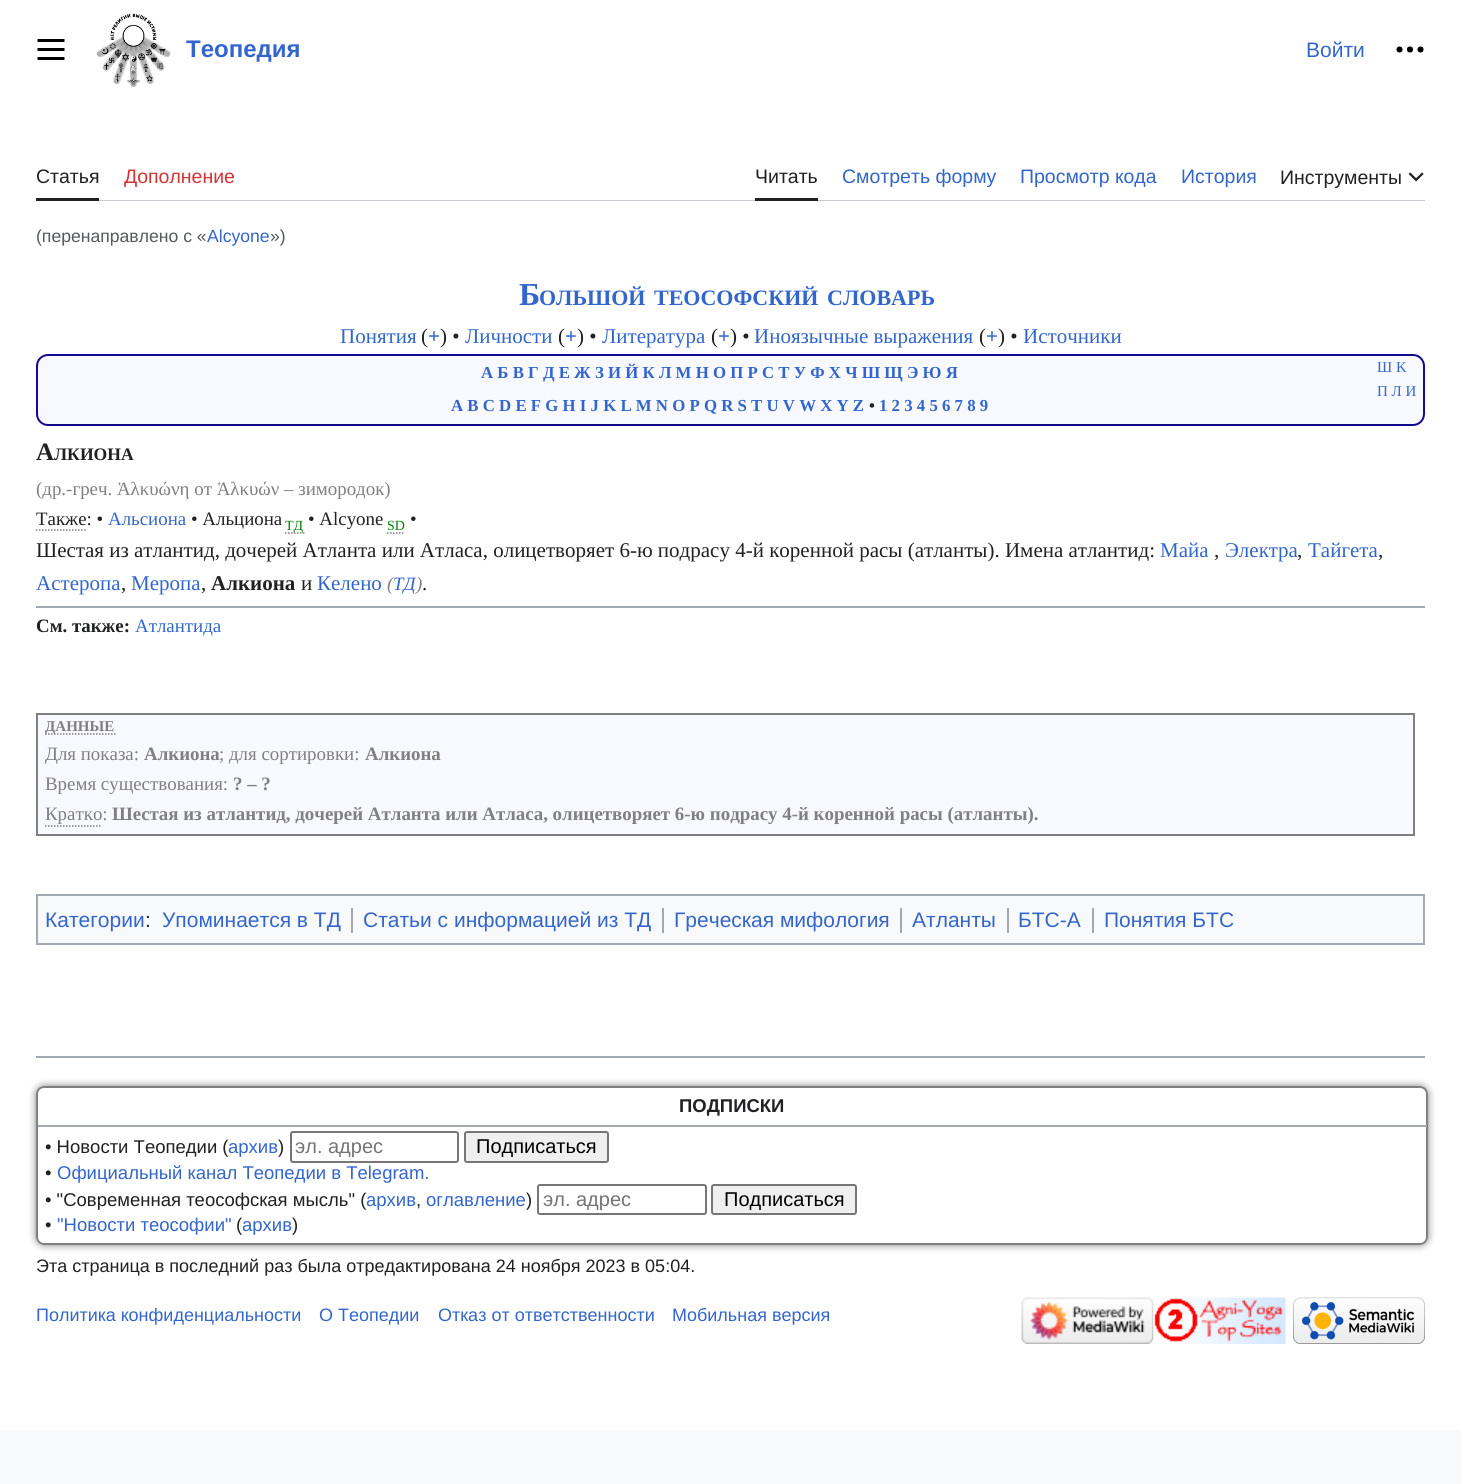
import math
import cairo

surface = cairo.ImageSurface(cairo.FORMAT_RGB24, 1461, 1484)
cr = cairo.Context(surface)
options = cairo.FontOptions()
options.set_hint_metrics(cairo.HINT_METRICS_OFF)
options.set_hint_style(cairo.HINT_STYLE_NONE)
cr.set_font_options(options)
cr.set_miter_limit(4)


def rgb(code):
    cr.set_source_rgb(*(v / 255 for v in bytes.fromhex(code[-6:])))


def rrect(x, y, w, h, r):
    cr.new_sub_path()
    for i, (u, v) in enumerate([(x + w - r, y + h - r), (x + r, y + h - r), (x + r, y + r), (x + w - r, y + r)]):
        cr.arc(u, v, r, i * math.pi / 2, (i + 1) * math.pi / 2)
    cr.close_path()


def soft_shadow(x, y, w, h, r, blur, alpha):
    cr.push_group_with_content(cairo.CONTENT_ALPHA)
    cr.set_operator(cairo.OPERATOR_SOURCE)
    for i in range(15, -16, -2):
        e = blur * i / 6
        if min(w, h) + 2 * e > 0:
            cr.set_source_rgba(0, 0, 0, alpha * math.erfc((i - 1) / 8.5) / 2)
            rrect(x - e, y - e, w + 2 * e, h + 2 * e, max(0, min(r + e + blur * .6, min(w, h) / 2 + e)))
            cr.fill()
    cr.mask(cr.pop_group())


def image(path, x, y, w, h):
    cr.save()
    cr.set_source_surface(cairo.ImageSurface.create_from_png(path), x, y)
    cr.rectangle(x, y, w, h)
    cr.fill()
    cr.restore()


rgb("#f8f9fa")
cr.paint()
rgb("#ffffff")
cr.rectangle(0, 0, 1461, 1430)
cr.fill()
image("img/1.png", 37, 39, 28, 21)
image("img/2.png", 96, 13, 75, 74)
image("img/3.png", 1396, 46, 28, 7)
for x, y, w, h, color in [
    (99, 200, 1326, 1, "#c8ccd1"),
    (36, 198, 63, 3, "#202122"),
    (755, 198, 63, 3, "#202122"),
]:
    rgb(color)
    cr.rectangle(x, y, w, h)
    cr.fill()
image("img/4.png", 1408, 172, 16, 10)
rgb("#f8f8ff")
rrect(37, 355, 1387, 70, 11)
cr.fill_preserve()
rgb("#120a8f")
cr.stroke()
cr.new_path()
cr.move_to(36, 530)
cr.line_to(87, 530)
rgb("#808080")
cr.set_line_width(1.5)
cr.set_dash([1.5, 1.5])
cr.stroke()
cr.new_path()
cr.move_to(285, 533)
cr.line_to(304.5, 533)
cr.stroke()
cr.new_path()
cr.move_to(387, 533)
cr.line_to(405, 533)
cr.stroke()
rgb("#a2a9b1")
cr.rectangle(36, 606, 1389, 2)
cr.fill()
rgb("#f8f8ff")
cr.rectangle(37, 714, 1377, 121)
cr.fill_preserve()
rgb("#808080")
cr.set_line_width(2)
cr.set_dash([])
cr.stroke()
cr.new_path()
cr.move_to(45, 734)
cr.line_to(115.5, 734)
cr.set_line_width(1.5)
cr.set_dash([1.5, 1.5])
cr.stroke()
cr.new_path()
cr.move_to(45, 826)
cr.line_to(102, 826)
cr.stroke()
rgb("#f8f9fa")
cr.rectangle(37, 895, 1387, 49)
cr.fill_preserve()
rgb("#a2a9b1")
cr.set_line_width(2)
cr.set_dash([])
cr.stroke()
for x, y, w, h, color in [
    (351, 908, 2, 25, "#a2a9b1"),
    (662, 908, 2, 25, "#a2a9b1"),
    (900, 908, 2, 25, "#a2a9b1"),
    (1007, 908, 2, 25, "#a2a9b1"),
    (1092, 908, 2, 25, "#a2a9b1"),
    (36, 1056, 1389, 2, "#a2a9b1"),
]:
    rgb(color)
    cr.rectangle(x, y, w, h)
    cr.fill()
cr.save()
cr.set_fill_rule(cairo.FILL_RULE_EVEN_ODD)
cr.new_path()
cr.move_to(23, 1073)
cr.line_to(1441, 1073)
cr.line_to(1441, 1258)
cr.line_to(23, 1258)
cr.close_path()
cr.move_to(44, 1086)
cr.line_to(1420, 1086)
cr.curve_to(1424.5, 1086, 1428, 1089.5, 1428, 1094)
cr.line_to(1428, 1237)
cr.curve_to(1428, 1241.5, 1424.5, 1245, 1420, 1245)
cr.line_to(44, 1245)
cr.curve_to(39.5, 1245, 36, 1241.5, 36, 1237)
cr.line_to(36, 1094)
cr.curve_to(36, 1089.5, 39.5, 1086, 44, 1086)
cr.close_path()
cr.clip()
rgb("#000000")
soft_shadow(36, 1086, 1392, 159, 8, 4, 0.5)
cr.restore()
rrect(37, 1087, 1390, 157, 7)
rgb("#808080")
cr.stroke()
rgb("#a2a9b1")
cr.rectangle(38, 1125, 1389, 2)
cr.fill()
rrect(291, 1132, 167, 30, 2)
rgb("#767676")
cr.stroke()
rgb("#efefef")
rrect(465, 1132, 143, 30, 2)
cr.fill_preserve()
rgb("#767676")
cr.stroke()
rrect(538, 1185, 168, 29, 2)
cr.stroke()
rgb("#efefef")
rrect(712, 1185, 144, 29, 2)
cr.fill_preserve()
rgb("#767676")
cr.stroke()
image("img/5.png", 1021, 1297, 133, 47)
image("img/6.png", 1153, 1297, 133, 47)
image("img/7.png", 1293, 1297, 132, 47)
cr.select_font_face("Liberation Sans", cairo.FONT_SLANT_NORMAL, cairo.FONT_WEIGHT_BOLD)
cr.set_font_size(24)
rgb("#3366cc")
cr.move_to(186, 57)
cr.show_text("Теопедия")
cr.select_font_face("Liberation Sans")
cr.set_font_size(21)
cr.move_to(1306, 57)
cr.show_text("Войти")
cr.set_font_size(19.5)
rgb("#202122")
cr.move_to(36, 183)
cr.show_text("Статья")
rgb("#d73333")
cr.move_to(124, 183)
cr.show_text("Дополнение")
rgb("#202122")
cr.move_to(755, 183)
cr.show_text("Читать")
rgb("#3366cc")
for x, y, s in [
    (842, 183, "Смотреть форму"),
    (1020, 183, "Просмотр кода"),
    (1181, 183, "История"),
]:
    cr.move_to(x, y)
    cr.show_text(s)
rgb("#202122")
cr.move_to(1280, 184)
cr.show_text("Инструменты")
cr.set_font_size(17.6)
rgb("#54595d")
cr.move_to(36, 242)
cr.show_text("(перенаправлено с «")
rgb("#3366cc")
cr.move_to(207, 242)
cr.show_text("Alcyone")
rgb("#54595d")
cr.move_to(270, 242)
cr.show_text("»)")
cr.select_font_face("Liberation Serif", cairo.FONT_SLANT_NORMAL, cairo.FONT_WEIGHT_BOLD)
cr.set_font_size(32)
rgb("#3366cc")
cr.move_to(519, 305)
cr.show_text("Б")
cr.set_font_size(22)
for x, y, s in [
    (539, 305, "ОЛЬШОЙ"),
    (654, 305, "ТЕОСОФСКИЙ"),
    (827, 305, "СЛОВАРЬ"),
]:
    cr.move_to(x, y)
    cr.show_text(s)
cr.select_font_face("Liberation Serif")
cr.set_font_size(21)
cr.move_to(340, 343)
cr.show_text("Понятия")
rgb("#202122")
cr.move_to(421, 343)
cr.show_text("(")
cr.select_font_face("Liberation Serif", cairo.FONT_SLANT_NORMAL, cairo.FONT_WEIGHT_BOLD)
rgb("#3366cc")
cr.move_to(428, 343)
cr.show_text("+")
cr.select_font_face("Liberation Serif")
rgb("#202122")
cr.move_to(440, 343)
cr.show_text(") •")
rgb("#3366cc")
cr.move_to(465, 343)
cr.show_text("Личности")
rgb("#202122")
cr.move_to(558, 343)
cr.show_text("(")
cr.select_font_face("Liberation Serif", cairo.FONT_SLANT_NORMAL, cairo.FONT_WEIGHT_BOLD)
rgb("#3366cc")
cr.move_to(565, 343)
cr.show_text("+")
cr.select_font_face("Liberation Serif")
rgb("#202122")
cr.move_to(577, 343)
cr.show_text(") •")
rgb("#3366cc")
cr.move_to(602, 343)
cr.show_text("Литература")
rgb("#202122")
cr.move_to(711, 343)
cr.show_text("(")
cr.select_font_face("Liberation Serif", cairo.FONT_SLANT_NORMAL, cairo.FONT_WEIGHT_BOLD)
rgb("#3366cc")
cr.move_to(718, 343)
cr.show_text("+")
cr.select_font_face("Liberation Serif")
rgb("#202122")
cr.move_to(730, 343)
cr.show_text(") •")
rgb("#3366cc")
cr.move_to(754, 343)
cr.show_text("Иноязычные выражения")
rgb("#202122")
cr.move_to(979, 343)
cr.show_text("(")
cr.select_font_face("Liberation Serif", cairo.FONT_SLANT_NORMAL, cairo.FONT_WEIGHT_BOLD)
rgb("#3366cc")
cr.move_to(986, 343)
cr.show_text("+")
cr.select_font_face("Liberation Serif")
rgb("#202122")
cr.move_to(998, 343)
cr.show_text(") •")
rgb("#3366cc")
cr.move_to(1023, 343)
cr.show_text("Источники")
cr.select_font_face("Liberation Serif", cairo.FONT_SLANT_NORMAL, cairo.FONT_WEIGHT_BOLD)
cr.set_font_size(16.8)
cr.move_to(481, 378)
cr.show_text("A Б В Г Д E Ж З И Й К Л М Н О П Р С Т У Ф Х Ч Ш Щ Э Ю Я")
cr.move_to(451, 411)
cr.show_text("A B C D E F G H I J K L M N O P Q R S T U V W X Y Z")
rgb("#202122")
cr.move_to(869, 411)
cr.show_text("•")
rgb("#3366cc")
cr.move_to(879, 411)
cr.show_text("1 2 3 4 5 6 7 8 9")
cr.select_font_face("Liberation Serif")
cr.set_font_size(15)
cr.move_to(1377, 372)
cr.show_text("Ш K")
cr.move_to(1377, 396)
cr.show_text("П Л И")
cr.select_font_face("Liberation Serif", cairo.FONT_SLANT_NORMAL, cairo.FONT_WEIGHT_BOLD)
cr.set_font_size(25)
rgb("#202122")
cr.move_to(36, 460)
cr.show_text("А")
cr.set_font_size(17.6)
cr.move_to(54, 460)
cr.show_text("ЛКИОНА")
cr.select_font_face("Liberation Serif")
cr.set_font_size(18.9)
rgb("#808080")
cr.move_to(36, 495)
cr.show_text("(др.-греч. Ἁλκυώνη от Ἁλκυών – зимородок)")
rgb("#202122")
cr.move_to(36, 525)
cr.show_text("Также: •")
rgb("#3366cc")
cr.move_to(108, 525)
cr.show_text("Альсиона")
rgb("#202122")
for x, y, s in [
    (191, 525, "• Альциона"),
    (308, 525, "• Alcyone"),
    (410, 525, "•"),
]:
    cr.move_to(x, y)
    cr.show_text(s)
cr.set_font_size(14)
rgb("#008000")
cr.move_to(285, 530)
cr.show_text("ТД")
cr.move_to(387, 530)
cr.show_text("SD")
cr.set_font_size(21)
rgb("#202122")
cr.move_to(36, 557)
cr.show_text("Шестая из атлантид, дочерей Атланта или Атласа, олицетворяет 6-ю подрасу 4-й коренной расы (атланты). Имена атлантид:")
rgb("#3366cc")
cr.move_to(1160, 557)
cr.show_text("Майа")
rgb("#202122")
cr.move_to(1214, 557)
cr.show_text(",")
rgb("#3366cc")
cr.move_to(1225, 557)
cr.show_text("Электра")
rgb("#202122")
cr.move_to(1297, 557)
cr.show_text(",")
rgb("#3366cc")
cr.move_to(1308, 557)
cr.show_text("Тайгета")
rgb("#202122")
cr.move_to(1378, 557)
cr.show_text(",")
rgb("#3366cc")
cr.move_to(36, 590)
cr.show_text("Астеропа")
rgb("#202122")
cr.move_to(121, 590)
cr.show_text(",")
rgb("#3366cc")
cr.move_to(131, 590)
cr.show_text("Меропа")
rgb("#202122")
cr.move_to(201, 590)
cr.show_text(",")
cr.select_font_face("Liberation Serif", cairo.FONT_SLANT_NORMAL, cairo.FONT_WEIGHT_BOLD)
cr.move_to(211, 590)
cr.show_text("Алкиона")
cr.select_font_face("Liberation Serif")
cr.move_to(301, 590)
cr.show_text("и")
rgb("#3366cc")
cr.move_to(317, 590)
cr.show_text("Келено")
cr.select_font_face("Liberation Serif", cairo.FONT_SLANT_ITALIC)
cr.set_font_size(18.9)
rgb("#808080")
cr.move_to(387, 590)
cr.show_text("(")
rgb("#3366cc")
cr.move_to(393, 590)
cr.show_text("ТД")
rgb("#808080")
cr.move_to(416, 590)
cr.show_text(")")
cr.select_font_face("Liberation Serif")
cr.set_font_size(21)
rgb("#202122")
cr.move_to(422, 590)
cr.show_text(".")
cr.select_font_face("Liberation Serif", cairo.FONT_SLANT_NORMAL, cairo.FONT_WEIGHT_BOLD)
cr.set_font_size(18.9)
cr.move_to(36, 632)
cr.show_text("См. также:")
cr.select_font_face("Liberation Serif")
rgb("#3366cc")
cr.move_to(135, 632)
cr.show_text("Атлантида")
cr.select_font_face("Liberation Serif", cairo.FONT_SLANT_NORMAL, cairo.FONT_WEIGHT_BOLD)
cr.set_font_size(15)
rgb("#808080")
cr.move_to(45, 731)
cr.show_text("ДАННЫЕ")
cr.select_font_face("Liberation Serif")
cr.set_font_size(18.9)
cr.move_to(45, 760)
cr.show_text("Для показа:")
cr.select_font_face("Liberation Serif", cairo.FONT_SLANT_NORMAL, cairo.FONT_WEIGHT_BOLD)
cr.move_to(144, 760)
cr.show_text("Алкиона")
cr.select_font_face("Liberation Serif")
cr.move_to(219, 760)
cr.show_text("; для сортировки:")
cr.select_font_face("Liberation Serif", cairo.FONT_SLANT_NORMAL, cairo.FONT_WEIGHT_BOLD)
cr.move_to(365, 760)
cr.show_text("Алкиона")
cr.select_font_face("Liberation Serif")
cr.move_to(45, 790)
cr.show_text("Время существования:")
cr.select_font_face("Liberation Serif", cairo.FONT_SLANT_NORMAL, cairo.FONT_WEIGHT_BOLD)
cr.move_to(233, 790)
cr.show_text("? – ?")
cr.select_font_face("Liberation Serif")
cr.move_to(45, 820)
cr.show_text("Кратко:")
cr.select_font_face("Liberation Serif", cairo.FONT_SLANT_NORMAL, cairo.FONT_WEIGHT_BOLD)
cr.move_to(112, 820)
cr.show_text("Шестая из атлантид, дочерей Атланта или Атласа, олицетворяет 6-ю подрасу 4-й коренной расы (атланты).")
cr.select_font_face("Liberation Sans")
cr.set_font_size(21)
rgb("#3366cc")
cr.move_to(45, 927)
cr.show_text("Категории")
rgb("#202122")
cr.move_to(145, 927)
cr.show_text(":")
rgb("#3366cc")
for x, y, s in [
    (162, 927, "Упоминается в ТД"),
    (363, 927, "Статьи с информацией из ТД"),
    (674, 927, "Греческая мифология"),
    (912, 927, "Атланты"),
    (1018, 927, "БТС-А"),
    (1104, 927, "Понятия БТС"),
]:
    cr.move_to(x, y)
    cr.show_text(s)
cr.select_font_face("Liberation Sans", cairo.FONT_SLANT_NORMAL, cairo.FONT_WEIGHT_BOLD)
cr.set_font_size(18.5)
rgb("#202122")
cr.move_to(679, 1112)
cr.show_text("ПОДПИСКИ")
cr.select_font_face("Liberation Sans")
cr.move_to(45, 1153)
cr.show_text("• Новости Теопедии (")
rgb("#3366cc")
cr.move_to(228, 1153)
cr.show_text("архив")
rgb("#202122")
cr.move_to(278, 1153)
cr.show_text(")")
cr.set_font_size(20)
rgb("#757575")
cr.move_to(295, 1153)
cr.show_text("эл. адрес")
rgb("#000000")
cr.move_to(476, 1153)
cr.show_text("Подписаться")
cr.set_font_size(18.5)
rgb("#202122")
cr.move_to(45, 1179)
cr.show_text("•")
rgb("#3366cc")
cr.move_to(57, 1179)
cr.show_text("Официальный канал Теопедии в Telegram.")
rgb("#202122")
cr.move_to(45, 1206)
cr.show_text("• \"Современная теософская мысль\" (")
rgb("#3366cc")
cr.move_to(366, 1206)
cr.show_text("архив")
rgb("#202122")
cr.move_to(416, 1206)
cr.show_text(",")
rgb("#3366cc")
cr.move_to(426, 1206)
cr.show_text("оглавление")
rgb("#202122")
cr.move_to(526, 1206)
cr.show_text(")")
cr.set_font_size(20)
rgb("#757575")
cr.move_to(543, 1206)
cr.show_text("эл. адрес")
rgb("#000000")
cr.move_to(724, 1206)
cr.show_text("Подписаться")
cr.set_font_size(18.5)
rgb("#202122")
cr.move_to(45, 1231)
cr.show_text("•")
rgb("#3366cc")
cr.move_to(57, 1231)
cr.show_text("\"Новости теософии\"")
rgb("#202122")
cr.move_to(236, 1231)
cr.show_text("(")
rgb("#3366cc")
cr.move_to(242, 1231)
cr.show_text("архив")
rgb("#202122")
cr.move_to(292, 1231)
cr.show_text(")")
cr.set_font_size(18)
cr.move_to(36, 1272)
cr.show_text("Эта страница в последний раз была отредактирована 24 ноября 2023 в 05:04.")
rgb("#3366cc")
for x, y, s in [
    (36, 1321, "Политика конфиденциальности"),
    (319, 1321, "О Теопедии"),
    (438, 1321, "Отказ от ответственности"),
    (672, 1321, "Мобильная версия"),
]:
    cr.move_to(x, y)
    cr.show_text(s)
surface.write_to_png("page.png")
